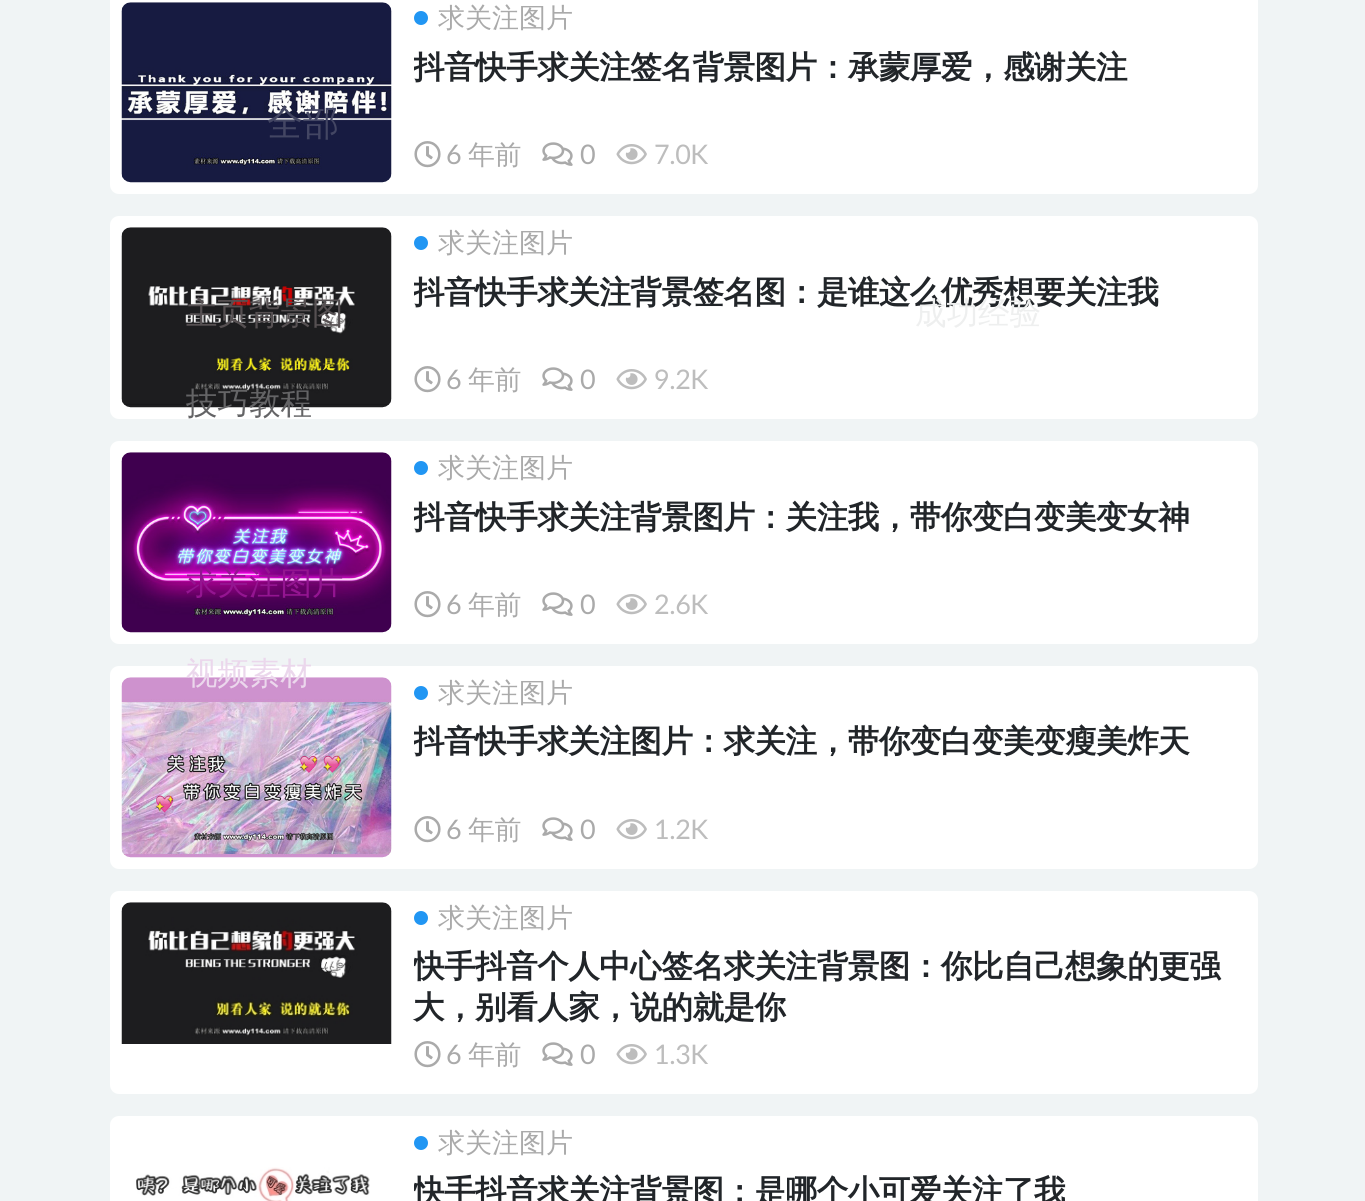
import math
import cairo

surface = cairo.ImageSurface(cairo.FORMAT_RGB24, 1365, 1201)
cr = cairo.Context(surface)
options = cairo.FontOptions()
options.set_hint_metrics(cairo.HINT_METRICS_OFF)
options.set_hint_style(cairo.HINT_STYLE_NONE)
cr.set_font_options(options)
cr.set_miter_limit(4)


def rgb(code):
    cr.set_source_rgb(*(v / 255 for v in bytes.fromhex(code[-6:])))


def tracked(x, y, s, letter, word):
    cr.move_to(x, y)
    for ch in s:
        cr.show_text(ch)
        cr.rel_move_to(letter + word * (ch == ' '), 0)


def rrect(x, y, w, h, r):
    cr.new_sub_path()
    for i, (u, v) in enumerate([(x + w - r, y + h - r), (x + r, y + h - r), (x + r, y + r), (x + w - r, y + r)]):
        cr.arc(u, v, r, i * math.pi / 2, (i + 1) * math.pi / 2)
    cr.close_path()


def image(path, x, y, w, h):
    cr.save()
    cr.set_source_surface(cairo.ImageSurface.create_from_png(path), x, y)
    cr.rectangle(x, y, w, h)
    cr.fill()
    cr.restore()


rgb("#f0f4f5")
cr.paint()
rgb("#ffffff")
rrect(110, -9, 1148, 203, 9)
cr.fill()
image("img/1.png", 121, 2, 271, 181)
rgb("#2196f3")
cr.arc(421, 18, 7, 0, 2 * math.pi)
cr.fill()
image("img/2.png", 414, 141, 27, 27)
image("img/3.png", 542, 142, 31, 24)
image("img/4.png", 616, 144, 31, 21)
rgb("#ffffff")
rrect(110, 216, 1148, 203, 9)
cr.fill()
image("img/5.png", 121, 227, 271, 181)
rgb("#2196f3")
cr.arc(421, 243, 7, 0, 2 * math.pi)
cr.fill()
image("img/2.png", 414, 366, 27, 27)
image("img/3.png", 542, 367, 31, 24)
image("img/4.png", 616, 369, 31, 21)
rgb("#ffffff")
rrect(110, 441, 1148, 203, 9)
cr.fill()
image("img/6.png", 121, 452, 271, 181)
rgb("#2196f3")
cr.arc(421, 468, 7, 0, 2 * math.pi)
cr.fill()
image("img/2.png", 414, 591, 27, 27)
image("img/3.png", 542, 592, 31, 24)
image("img/4.png", 616, 594, 31, 21)
rgb("#ffffff")
rrect(110, 666, 1148, 203, 9)
cr.fill()
image("img/7.png", 121, 677, 271, 181)
rgb("#2196f3")
cr.arc(421, 693, 7, 0, 2 * math.pi)
cr.fill()
image("img/2.png", 414, 816, 27, 27)
image("img/3.png", 542, 817, 31, 24)
image("img/4.png", 616, 819, 31, 21)
rgb("#ffffff")
rrect(110, 891, 1148, 203, 9)
cr.fill()
image("img/8.png", 121, 902, 271, 142)
rgb("#2196f3")
cr.arc(421, 918, 7, 0, 2 * math.pi)
cr.fill()
image("img/2.png", 414, 1041, 27, 27)
image("img/3.png", 542, 1042, 31, 24)
image("img/4.png", 616, 1044, 31, 21)
rgb("#ffffff")
rrect(110, 1116, 1148, 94, 9)
cr.fill()
image("img/9.png", 136, 1167, 234, 34)
rgb("#2196f3")
cr.arc(421, 1143, 7, 0, 2 * math.pi)
cr.fill()
cr.select_font_face("WenQuanYi Zen Hei Medium")
cr.set_font_size(27)
rgb("#aaaaaa")
cr.move_to(438, 27)
cr.show_text("求关注图片")
cr.save()
cr.rectangle(414, 45, 833, 81)
cr.clip()
cr.select_font_face("WenQuanYi Zen Hei", cairo.FONT_SLANT_NORMAL, cairo.FONT_WEIGHT_BOLD)
cr.set_font_size(31.5)
rgb("#212529")
tracked(413, 78, "抖音快手求关注签名背景图片：承蒙厚爱，感谢关注", -0.45, 0)
cr.restore()
cr.select_font_face("Lato")
tracked(446, 164, "6", -0.45, 0)
cr.select_font_face("WenQuanYi Zen Hei Medium")
tracked(468, 164, "年前", -0.45, 0)
cr.select_font_face("Lato")
tracked(580, 164, "0", -0.45, 0)
rgb("#bdbdbd")
tracked(654, 164, "7.0K", -0.45, 0)
cr.select_font_face("WenQuanYi Zen Hei Medium")
rgb("#aaaaaa")
cr.move_to(438, 252)
cr.show_text("求关注图片")
cr.save()
cr.rectangle(414, 270, 833, 81)
cr.clip()
cr.select_font_face("WenQuanYi Zen Hei", cairo.FONT_SLANT_NORMAL, cairo.FONT_WEIGHT_BOLD)
cr.set_font_size(31.5)
rgb("#212529")
tracked(413, 303, "抖音快手求关注背景签名图：是谁这么优秀想要关注我", -0.45, 0)
cr.restore()
cr.select_font_face("Lato")
tracked(446, 389, "6", -0.45, 0)
cr.select_font_face("WenQuanYi Zen Hei Medium")
tracked(468, 389, "年前", -0.45, 0)
cr.select_font_face("Lato")
tracked(580, 389, "0", -0.45, 0)
rgb("#bdbdbd")
tracked(654, 389, "9.2K", -0.45, 0)
cr.select_font_face("WenQuanYi Zen Hei Medium")
rgb("#aaaaaa")
cr.move_to(438, 477)
cr.show_text("求关注图片")
cr.save()
cr.rectangle(414, 495, 833, 81)
cr.clip()
cr.select_font_face("WenQuanYi Zen Hei", cairo.FONT_SLANT_NORMAL, cairo.FONT_WEIGHT_BOLD)
cr.set_font_size(31.5)
rgb("#212529")
tracked(413, 528, "抖音快手求关注背景图片：关注我，带你变白变美变女神", -0.45, 0)
cr.restore()
cr.select_font_face("Lato")
tracked(446, 614, "6", -0.45, 0)
cr.select_font_face("WenQuanYi Zen Hei Medium")
tracked(468, 614, "年前", -0.45, 0)
cr.select_font_face("Lato")
tracked(580, 614, "0", -0.45, 0)
rgb("#bdbdbd")
tracked(654, 614, "2.6K", -0.45, 0)
cr.select_font_face("WenQuanYi Zen Hei Medium")
rgb("#aaaaaa")
cr.move_to(438, 702)
cr.show_text("求关注图片")
cr.save()
cr.rectangle(414, 720, 833, 81)
cr.clip()
cr.select_font_face("WenQuanYi Zen Hei", cairo.FONT_SLANT_NORMAL, cairo.FONT_WEIGHT_BOLD)
cr.set_font_size(31.5)
rgb("#212529")
tracked(413, 752, "抖音快手求关注图片：求关注，带你变白变美变瘦美炸天", -0.45, 0)
cr.restore()
cr.select_font_face("Lato")
tracked(446, 839, "6", -0.45, 0)
cr.select_font_face("WenQuanYi Zen Hei Medium")
tracked(468, 839, "年前", -0.45, 0)
cr.select_font_face("Lato")
tracked(580, 839, "0", -0.45, 0)
rgb("#bdbdbd")
tracked(654, 839, "1.2K", -0.45, 0)
cr.select_font_face("WenQuanYi Zen Hei Medium")
rgb("#aaaaaa")
cr.move_to(438, 927)
cr.show_text("求关注图片")
cr.save()
cr.rectangle(414, 945, 833, 81)
cr.clip()
cr.select_font_face("WenQuanYi Zen Hei", cairo.FONT_SLANT_NORMAL, cairo.FONT_WEIGHT_BOLD)
cr.set_font_size(31.5)
rgb("#212529")
tracked(413, 977, "快手抖音个人中心签名求关注背景图：你比自己想象的更强", -0.45, 0)
cr.restore()
cr.select_font_face("WenQuanYi Zen Hei", cairo.FONT_SLANT_NORMAL, cairo.FONT_WEIGHT_BOLD)
cr.set_font_size(31.5)
rgb("#212529")
tracked(413, 1018, "大，别看人家，说的就是你", -0.45, 0)
cr.select_font_face("Lato")
cr.set_font_size(27)
rgb("#aaaaaa")
tracked(446, 1064, "6", -0.45, 0)
cr.select_font_face("WenQuanYi Zen Hei Medium")
tracked(468, 1064, "年前", -0.45, 0)
cr.select_font_face("Lato")
tracked(580, 1064, "0", -0.45, 0)
rgb("#bdbdbd")
tracked(654, 1064, "1.3K", -0.45, 0)
cr.select_font_face("WenQuanYi Zen Hei Medium")
rgb("#aaaaaa")
cr.move_to(438, 1152)
cr.show_text("求关注图片")
cr.save()
cr.rectangle(414, 1170, 833, 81)
cr.clip()
cr.select_font_face("WenQuanYi Zen Hei", cairo.FONT_SLANT_NORMAL, cairo.FONT_WEIGHT_BOLD)
cr.set_font_size(31.5)
rgb("#212529")
tracked(413, 1202, "快手抖音求关注背景图：是哪个小可爱关注了我", -0.45, 0)
cr.restore()
cr.set_font_size(36)
rgb("#434663")
cr.move_to(267, 135)
cr.show_text("全部")
cr.set_font_size(31.5)
rgb("#565052")
cr.move_to(186, 324)
cr.show_text("主页背景图")
rgb("#eeefef")
cr.move_to(915, 324)
cr.show_text("成功经验")
rgb("#646466")
cr.move_to(186, 414)
cr.show_text("技巧教程")
rgb("#941591")
cr.move_to(186, 594)
cr.show_text("求关注图片")
rgb("#ebd7ec")
cr.move_to(186, 684)
cr.show_text("视频素材")
surface.write_to_png("page.png")
